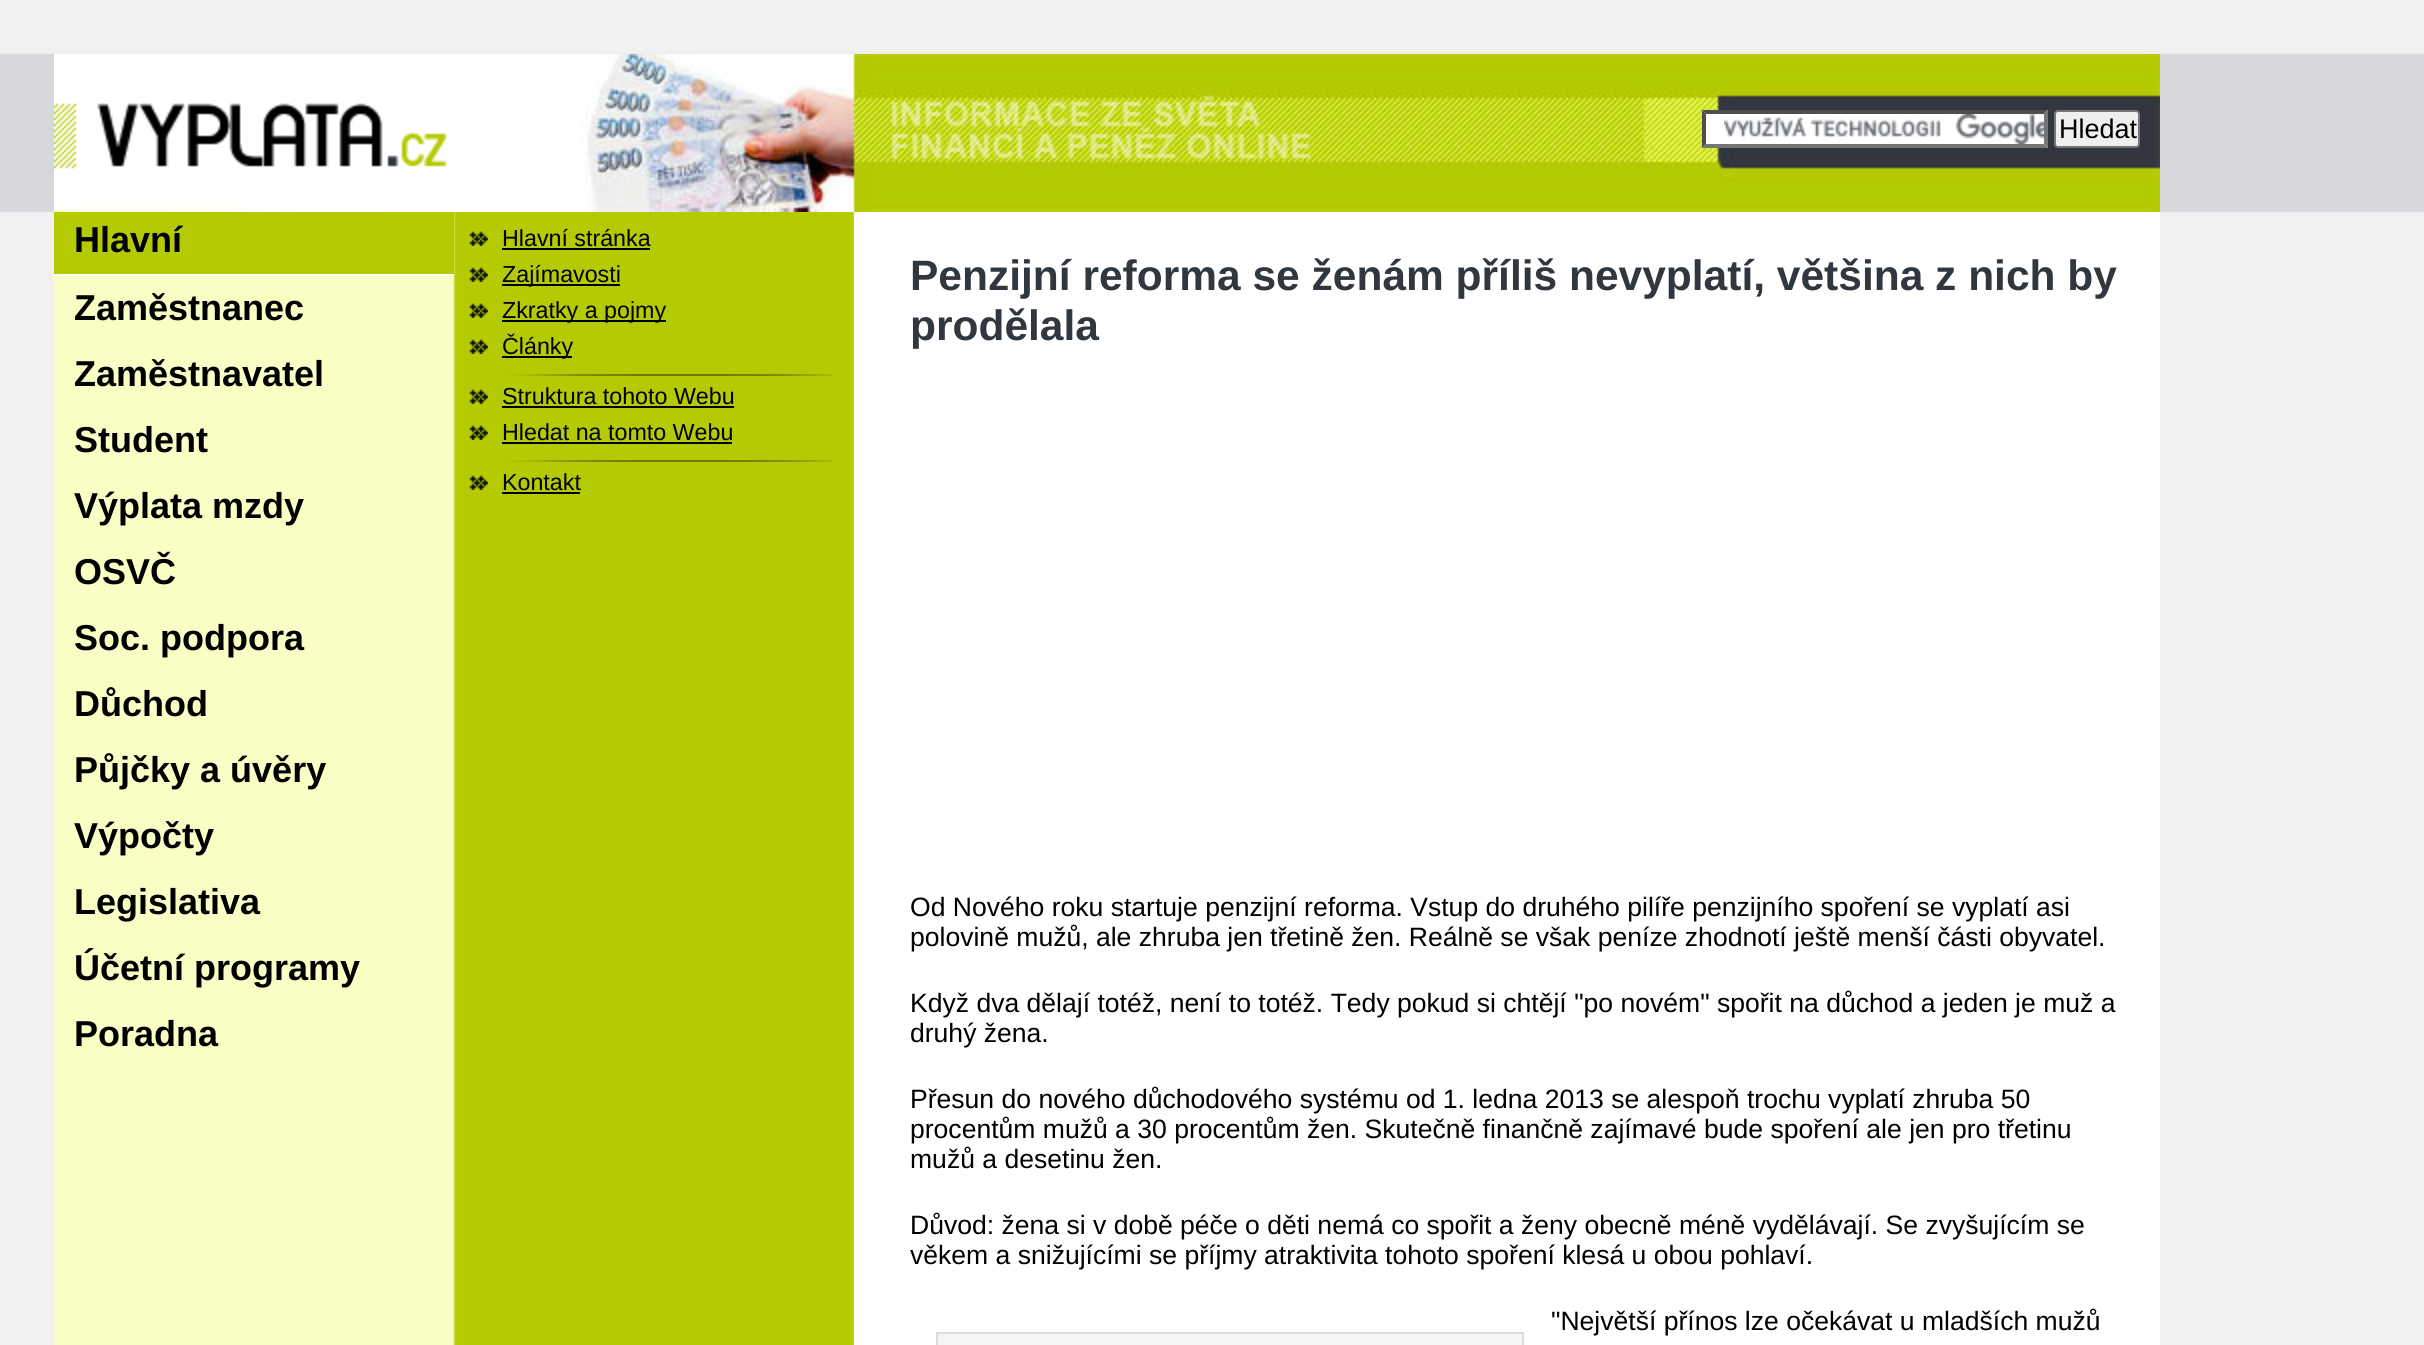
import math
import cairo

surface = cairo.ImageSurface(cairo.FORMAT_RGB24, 2424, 1345)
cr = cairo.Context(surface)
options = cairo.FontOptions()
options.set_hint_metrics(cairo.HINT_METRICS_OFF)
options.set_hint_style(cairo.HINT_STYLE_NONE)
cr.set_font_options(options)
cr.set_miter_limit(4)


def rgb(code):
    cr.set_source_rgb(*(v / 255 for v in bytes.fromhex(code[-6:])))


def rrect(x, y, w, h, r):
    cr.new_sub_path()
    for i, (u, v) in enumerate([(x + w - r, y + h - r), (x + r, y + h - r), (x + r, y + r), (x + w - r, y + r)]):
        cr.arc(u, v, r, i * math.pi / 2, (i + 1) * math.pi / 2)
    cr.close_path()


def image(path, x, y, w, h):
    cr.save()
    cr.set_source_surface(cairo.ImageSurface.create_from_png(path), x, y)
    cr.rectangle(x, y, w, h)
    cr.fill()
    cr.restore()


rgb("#f1f1f2")
cr.paint()
image("img/1.png", 0, 53, 2424, 160)
rgb("#ffffff")
cr.rectangle(854, 212, 1306, 1133)
cr.fill()
image("img/2.png", 54, 54, 2106, 158)
image("img/3.png", 54, 103, 393, 66)
cr.rectangle(1702, 110, 346, 38)
cr.fill()
image("img/4.png", 1724, 114, 320, 30)
rgb("#4f4f4f")
cr.new_path()
cr.move_to(1702, 110)
cr.line_to(2048, 110)
cr.line_to(2044, 114)
cr.line_to(1706, 114)
cr.close_path()
cr.fill()
rgb("#767676")
cr.new_path()
cr.move_to(2048, 110)
cr.line_to(2048, 148)
cr.line_to(2044, 144)
cr.line_to(2044, 114)
cr.close_path()
cr.fill()
cr.new_path()
cr.move_to(2048, 148)
cr.line_to(1702, 148)
cr.line_to(1706, 144)
cr.line_to(2044, 144)
cr.close_path()
cr.fill()
rgb("#4f4f4f")
cr.new_path()
cr.move_to(1702, 148)
cr.line_to(1702, 110)
cr.line_to(1706, 114)
cr.line_to(1706, 144)
cr.close_path()
cr.fill()
rgb("#efefef")
rrect(2055, 111, 84, 36, 3)
cr.fill_preserve()
rgb("#767676")
cr.stroke()
image("img/5.png", 54, 212, 800, 1133)
rgb("#b5ca02")
cr.rectangle(54, 212, 400, 62)
cr.fill()
rgb("#ffffff")
cr.rectangle(54, 274, 400, 2)
cr.fill()
image("img/6.png", 469, 231, 19, 15)
rgb("#000000")
cr.rectangle(502, 248, 148, 2)
cr.fill()
image("img/6.png", 469, 267, 19, 15)
cr.rectangle(502, 284, 118, 2)
cr.fill()
image("img/6.png", 469, 303, 19, 15)
cr.rectangle(502, 320, 164, 2)
cr.fill()
image("img/6.png", 469, 339, 19, 15)
cr.rectangle(502, 356, 70, 2)
cr.fill()
image("img/7.png", 509, 374, 323, 2)
image("img/6.png", 469, 389, 19, 15)
cr.rectangle(502, 406, 232, 2)
cr.fill()
image("img/6.png", 469, 425, 19, 15)
cr.rectangle(502, 442, 230, 2)
cr.fill()
image("img/7.png", 509, 460, 323, 2)
image("img/6.png", 469, 475, 19, 15)
cr.rectangle(502, 492, 78, 2)
cr.fill()
rgb("#f5f5f5")
cr.rectangle(937, 1333, 586, 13)
cr.fill_preserve()
rgb("#dcdcdc")
cr.stroke()
cr.select_font_face("Liberation Sans")
cr.set_font_size(27)
rgb("#000000")
cr.move_to(2059, 138)
cr.show_text("Hledat")
cr.select_font_face("Liberation Sans", cairo.FONT_SLANT_NORMAL, cairo.FONT_WEIGHT_BOLD)
cr.set_font_size(36)
for x, y, s in [
    (74, 252, "Hlavní"),
    (74, 320, "Zaměstnanec"),
    (74, 386, "Zaměstnavatel"),
    (74, 452, "Student"),
    (74, 518, "Výplata mzdy"),
    (74, 584, "OSVČ"),
    (74, 650, "Soc. podpora"),
    (74, 716, "Důchod"),
    (74, 782, "Půjčky a úvěry"),
    (74, 848, "Výpočty"),
    (74, 914, "Legislativa"),
    (74, 980, "Účetní programy"),
    (74, 1046, "Poradna"),
]:
    cr.move_to(x, y)
    cr.show_text(s)
cr.select_font_face("Liberation Sans")
cr.set_font_size(23.25)
for x, y, s in [
    (502, 246, "Hlavní stránka"),
    (502, 282, "Zajímavosti"),
    (502, 318, "Zkratky a pojmy"),
    (502, 354, "Články"),
    (502, 404, "Struktura tohoto Webu"),
    (502, 440, "Hledat na tomto Webu"),
    (502, 490, "Kontakt"),
]:
    cr.move_to(x, y)
    cr.show_text(s)
cr.select_font_face("Liberation Sans", cairo.FONT_SLANT_NORMAL, cairo.FONT_WEIGHT_BOLD)
cr.set_font_size(42.5)
rgb("#31373f")
cr.move_to(910, 290)
cr.show_text("Penzijní reforma se ženám příliš nevyplatí, většina z nich by")
cr.move_to(910, 340)
cr.show_text("prodělala")
cr.select_font_face("Liberation Sans")
cr.set_font_size(26.55)
rgb("#000000")
for x, y, s in [
    (910, 916, "Od Nového roku startuje penzijní reforma. Vstup do druhého pilíře penzijního spoření se vyplatí asi"),
    (910, 946, "polovině mužů, ale zhruba jen třetině žen. Reálně se však peníze zhodnotí ještě menší části obyvatel."),
    (910, 1012, "Když dva dělají totéž, není to totéž. Tedy pokud si chtějí \"po novém\" spořit na důchod a jeden je muž a"),
    (910, 1042, "druhý žena."),
    (910, 1108, "Přesun do nového důchodového systému od 1. ledna 2013 se alespoň trochu vyplatí zhruba 50"),
    (910, 1138, "procentům mužů a 30 procentům žen. Skutečně finančně zajímavé bude spoření ale jen pro třetinu"),
    (910, 1168, "mužů a desetinu žen."),
    (910, 1234, "Důvod: žena si v době péče o děti nemá co spořit a ženy obecně méně vydělávají. Se zvyšujícím se"),
    (910, 1264, "věkem a snižujícími se příjmy atraktivita tohoto spoření klesá u obou pohlaví."),
    (1551, 1330, "\"Největší přínos lze očekávat u mladších mužů"),
]:
    cr.move_to(x, y)
    cr.show_text(s)
surface.write_to_png("page.png")
